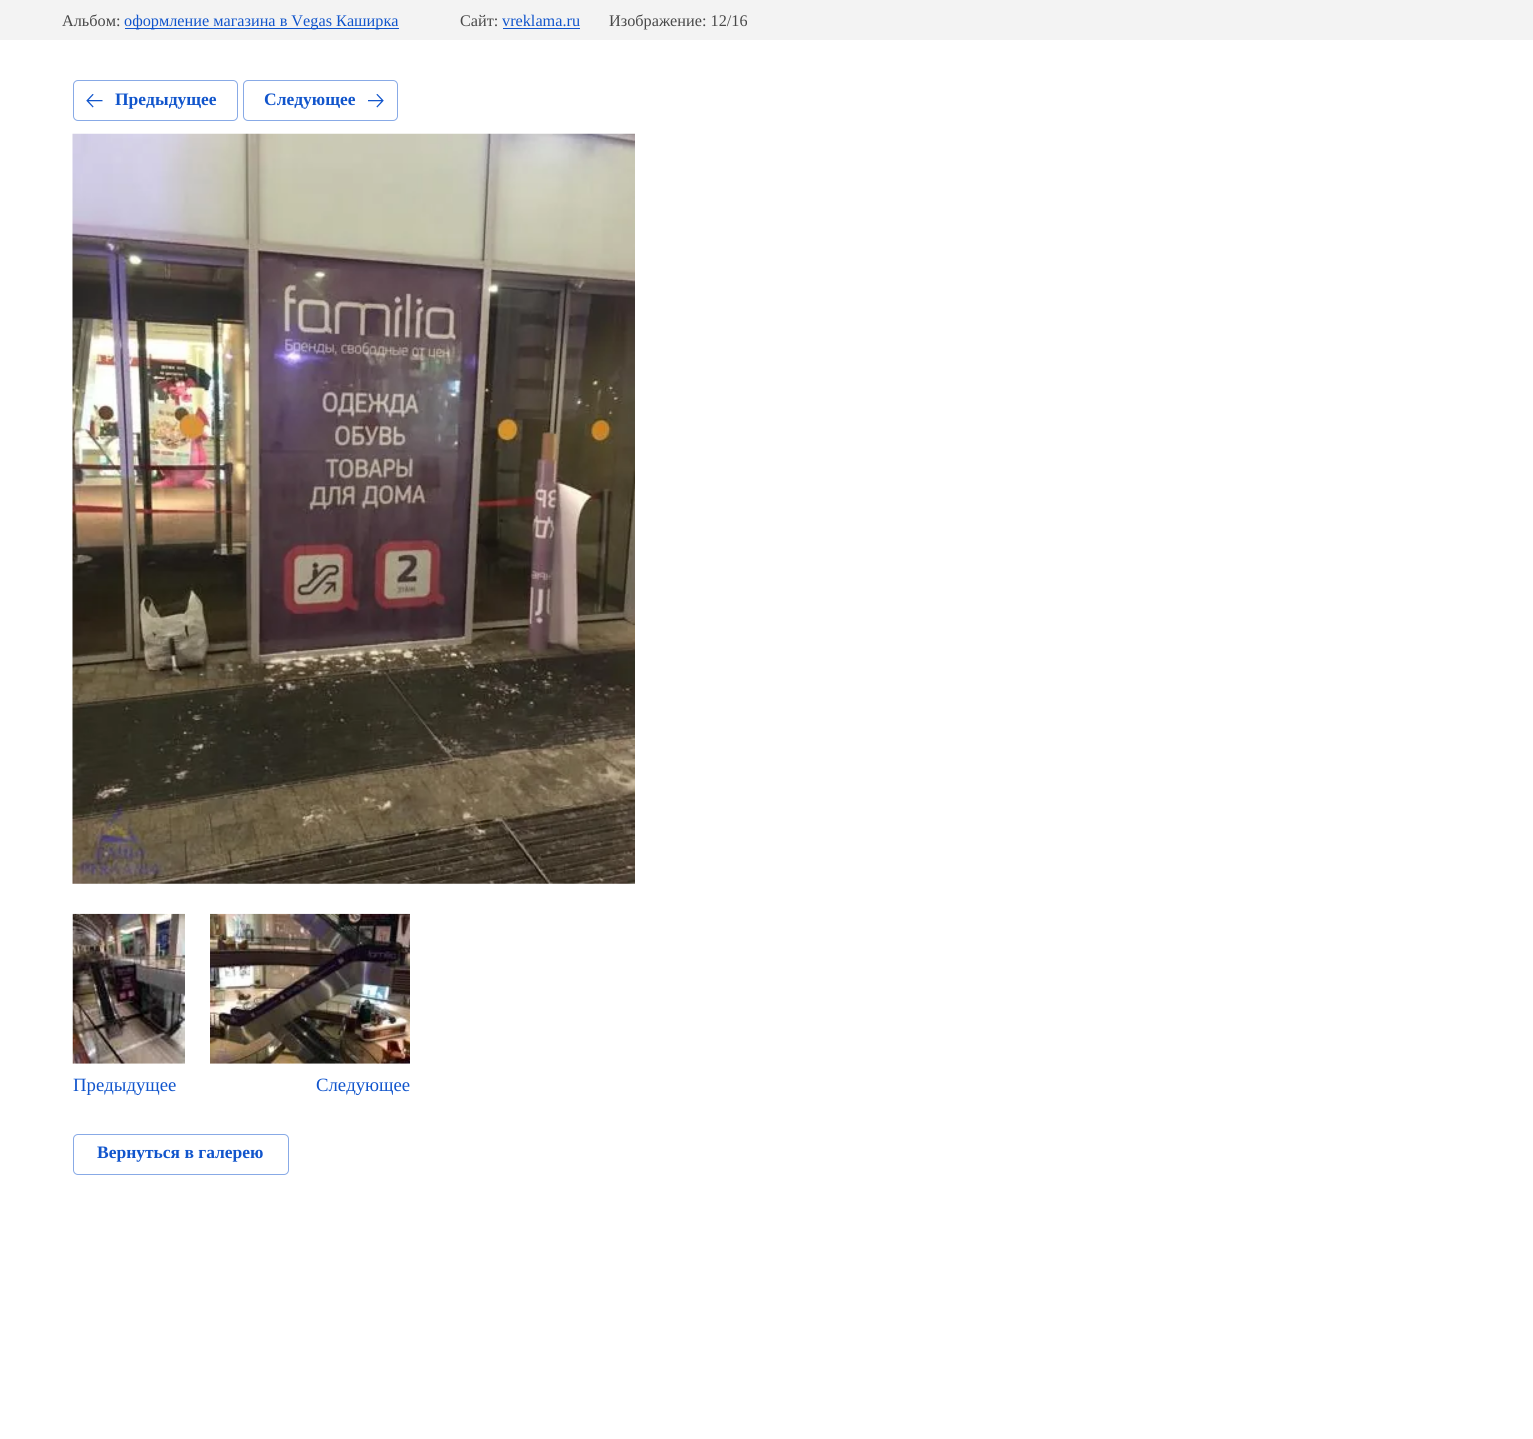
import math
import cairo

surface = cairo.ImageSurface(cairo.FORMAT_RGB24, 1533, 1439)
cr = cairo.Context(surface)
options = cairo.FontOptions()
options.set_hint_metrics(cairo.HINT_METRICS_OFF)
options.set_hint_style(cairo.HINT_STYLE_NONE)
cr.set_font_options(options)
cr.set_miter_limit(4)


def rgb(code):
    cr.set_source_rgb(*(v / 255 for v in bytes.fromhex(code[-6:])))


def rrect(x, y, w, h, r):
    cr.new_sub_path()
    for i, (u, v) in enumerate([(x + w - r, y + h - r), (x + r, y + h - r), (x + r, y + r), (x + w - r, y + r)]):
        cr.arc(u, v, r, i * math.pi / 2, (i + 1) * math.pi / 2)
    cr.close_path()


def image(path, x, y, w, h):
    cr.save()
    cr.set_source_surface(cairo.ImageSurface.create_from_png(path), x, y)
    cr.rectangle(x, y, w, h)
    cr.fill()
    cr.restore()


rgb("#ffffff")
cr.paint()
for x, y, w, h, color in [
    (0, 0, 1533, 40, "#f3f3f3"),
    (125, 28, 274, 1, "#1155cc"),
    (503, 28, 77, 1, "#1155cc"),
]:
    rgb(color)
    cr.rectangle(x, y, w, h)
    cr.fill()
rrect(73.5, 80.5, 164, 40, 4.5)
rgb("#88aae6")
cr.set_line_width(1)
cr.stroke()
image("img/1.png", 86, 94, 17, 14)
rrect(243.5, 80.5, 154, 40, 4.5)
cr.stroke()
image("img/2.png", 368, 94, 16, 14)
image("img/3.png", 72, 133, 563, 751)
image("img/4.png", 72, 913, 113, 151)
image("img/5.png", 210, 913, 200, 151)
rrect(73.5, 1134.5, 215, 40, 4.5)
cr.stroke()
cr.select_font_face("Liberation Serif")
cr.set_font_size(16.25)
rgb("#484848")
cr.move_to(62, 26)
cr.show_text("Альбом:")
rgb("#1155cc")
cr.move_to(124, 26)
cr.show_text("оформление магазина в Vegas Каширка")
rgb("#484848")
cr.move_to(460, 26)
cr.show_text("Сайт:")
rgb("#1155cc")
cr.move_to(502, 26)
cr.show_text("vreklama.ru")
rgb("#484848")
cr.move_to(609, 26)
cr.show_text("Изображение: 12/16")
cr.select_font_face("Liberation Serif", cairo.FONT_SLANT_NORMAL, cairo.FONT_WEIGHT_BOLD)
cr.set_font_size(17.5)
rgb("#1155cc")
cr.move_to(115, 105)
cr.show_text("Предыдущее")
cr.move_to(264, 105)
cr.show_text("Следующее")
cr.select_font_face("Liberation Serif")
cr.set_font_size(18.75)
cr.move_to(73, 1091)
cr.show_text("Предыдущее")
cr.move_to(316, 1091)
cr.show_text("Следующее")
cr.select_font_face("Liberation Serif", cairo.FONT_SLANT_NORMAL, cairo.FONT_WEIGHT_BOLD)
cr.set_font_size(17.5)
cr.move_to(97, 1158)
cr.show_text("Вернуться в галерею")
surface.write_to_png("page.png")
